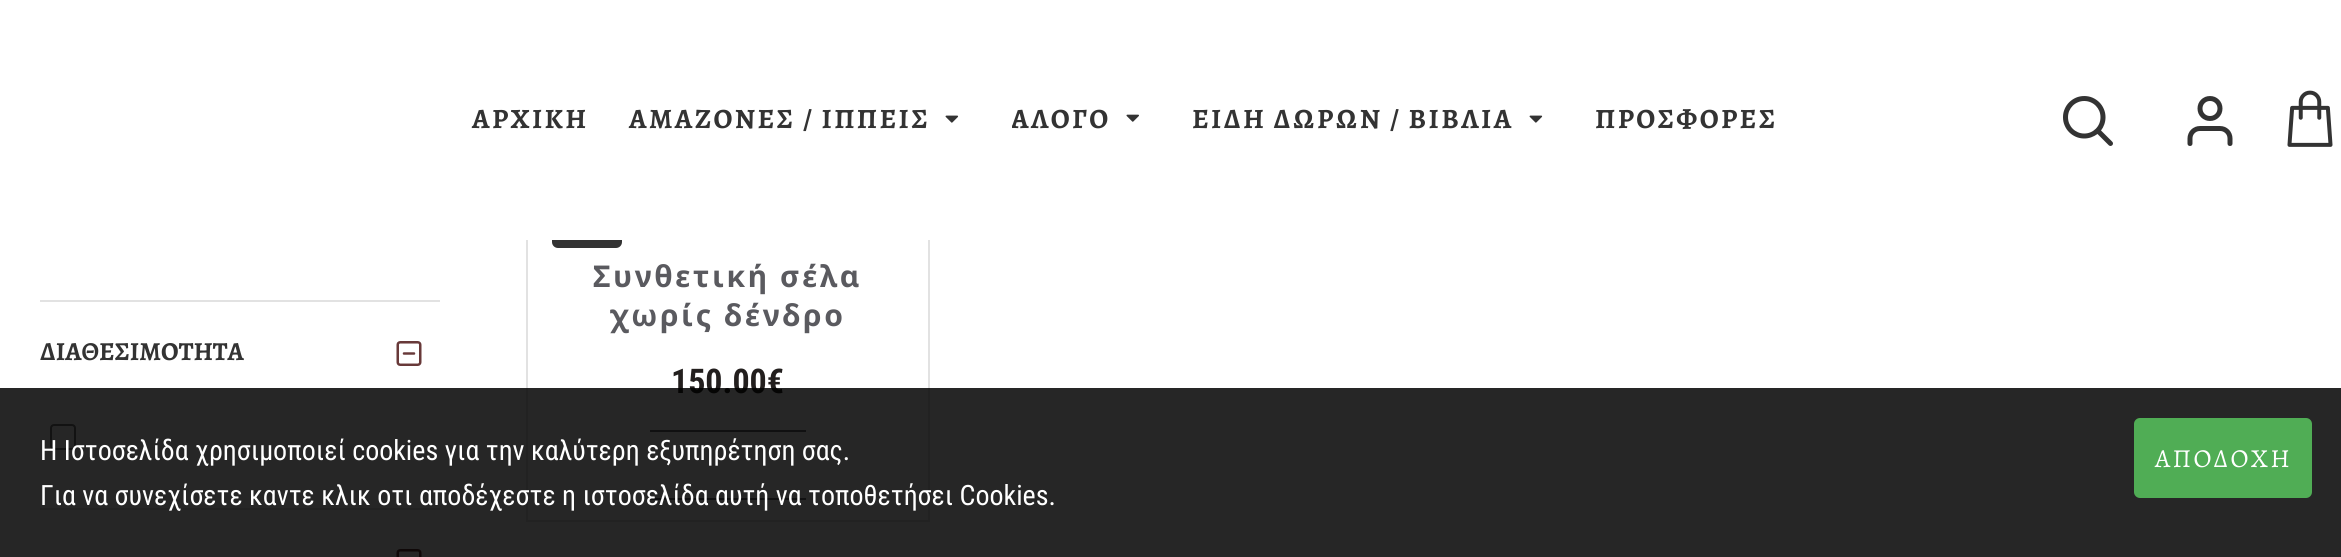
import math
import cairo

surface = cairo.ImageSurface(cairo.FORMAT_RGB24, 2341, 557)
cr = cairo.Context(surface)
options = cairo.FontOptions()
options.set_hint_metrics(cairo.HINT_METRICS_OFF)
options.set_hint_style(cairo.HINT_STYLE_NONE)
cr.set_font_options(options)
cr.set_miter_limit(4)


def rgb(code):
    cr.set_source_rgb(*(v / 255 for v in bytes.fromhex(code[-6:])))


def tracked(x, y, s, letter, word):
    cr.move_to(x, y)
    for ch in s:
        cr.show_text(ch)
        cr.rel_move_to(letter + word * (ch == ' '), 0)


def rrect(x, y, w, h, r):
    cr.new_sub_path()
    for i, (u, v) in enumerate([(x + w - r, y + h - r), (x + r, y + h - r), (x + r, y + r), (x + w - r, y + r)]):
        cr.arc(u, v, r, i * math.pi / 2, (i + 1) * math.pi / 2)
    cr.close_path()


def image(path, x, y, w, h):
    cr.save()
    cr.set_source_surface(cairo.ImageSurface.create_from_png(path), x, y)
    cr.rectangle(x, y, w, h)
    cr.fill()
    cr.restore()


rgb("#ffffff")
cr.paint()
cr.rectangle(527, -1, 402, 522)
rgb("#e2e2e2")
cr.stroke()
rgb("#333333")
rrect(552, 178, 70, 70, 6)
cr.fill()
rgb("#ffffff")
cr.rectangle(526, 0, 404, 240)
cr.fill()
image("img/1.png", 945, 115, 14, 8)
image("img/2.png", 1126, 114, 13, 8)
image("img/3.png", 1529, 115, 14, 8)
image("img/4.png", 2063, 96, 50, 50)
image("img/5.png", 2187, 96, 46, 50)
image("img/6.png", 2287, 90, 46, 57)
rgb("#e2e2e2")
cr.rectangle(40, 300, 400, 2)
cr.fill()
image("img/7.png", 396, 341, 26, 25)
rrect(51, 425, 24, 24, 3)
rgb("#767676")
cr.stroke()
rgb("#e2e2e2")
cr.rectangle(40, 508, 400, 2)
cr.fill()
image("img/8.png", 396, 549, 26, 8)
rgb("#696973")
cr.rectangle(650, 430, 156, 2)
cr.fill()
cr.rectangle(650, 498, 156, 2)
cr.fill()
cr.select_font_face("Alegreya", cairo.FONT_SLANT_NORMAL, cairo.FONT_WEIGHT_BOLD)
cr.set_font_size(28)
rgb("#333333")
tracked(472, 128, "ΑΡΧΙΚΗ", 2.4, 0)
tracked(629, 128, "ΑΜΑΖΟΝΕΣ / ΙΠΠΕΙΣ", 2.4, 0)
cr.save()
cr.rectangle(1012, 98, 98, 44)
cr.clip()
tracked(1011, 128, "ΑΛΟΓΟ", 2.4, 0)
cr.restore()
tracked(1192, 128, "ΕΙΔΗ ΔΩΡΩΝ / ΒΙΒΛΙΑ", 2.4, 0)
tracked(1595, 128, "ΠΡΟΣΦΟΡΕΣ", 2.4, 0)
cr.set_font_size(26)
cr.move_to(40, 360)
cr.show_text("ΔΙΑΘΕΣΙΜΟΤΗΤΑ")
cr.select_font_face("Noto Sans", cairo.FONT_SLANT_NORMAL, cairo.FONT_WEIGHT_BOLD)
cr.set_font_size(30)
rgb("#5a5a5f")
tracked(593, 287, "Συνθετική σέλα", 2.6, 0)
tracked(610, 326, "χωρίς δένδρο", 2.6, 0)
cr.select_font_face("Roboto Condensed", cairo.FONT_SLANT_NORMAL, cairo.FONT_WEIGHT_BOLD)
cr.set_font_size(34)
rgb("#231f1e")
cr.move_to(671, 393)
cr.show_text("150.00€")
cr.set_source_rgba(0, 0, 0, 0.85)
cr.rectangle(0, 388, 2341, 169)
cr.fill()
cr.select_font_face("Roboto Condensed")
cr.set_font_size(28)
rgb("#ffffff")
cr.move_to(40, 460)
cr.show_text("Η Ιστοσελίδα χρησιμοποιεί cookies για την καλύτερη εξυπηρέτηση σας.")
cr.move_to(40, 505)
cr.show_text("Για να συνεχίσετε καντε κλικ οτι αποδέχεστε η ιστοσελίδα αυτή να τοποθετήσει Cookies.")
rgb("#50ad55")
rrect(2134, 418, 178, 80, 6)
cr.fill()
cr.select_font_face("Alegreya")
cr.set_font_size(26)
rgb("#ffffff")
tracked(2155, 467, "ΑΠΟΔΟΧΗ", 2.4, 0)
surface.write_to_png("page.png")
